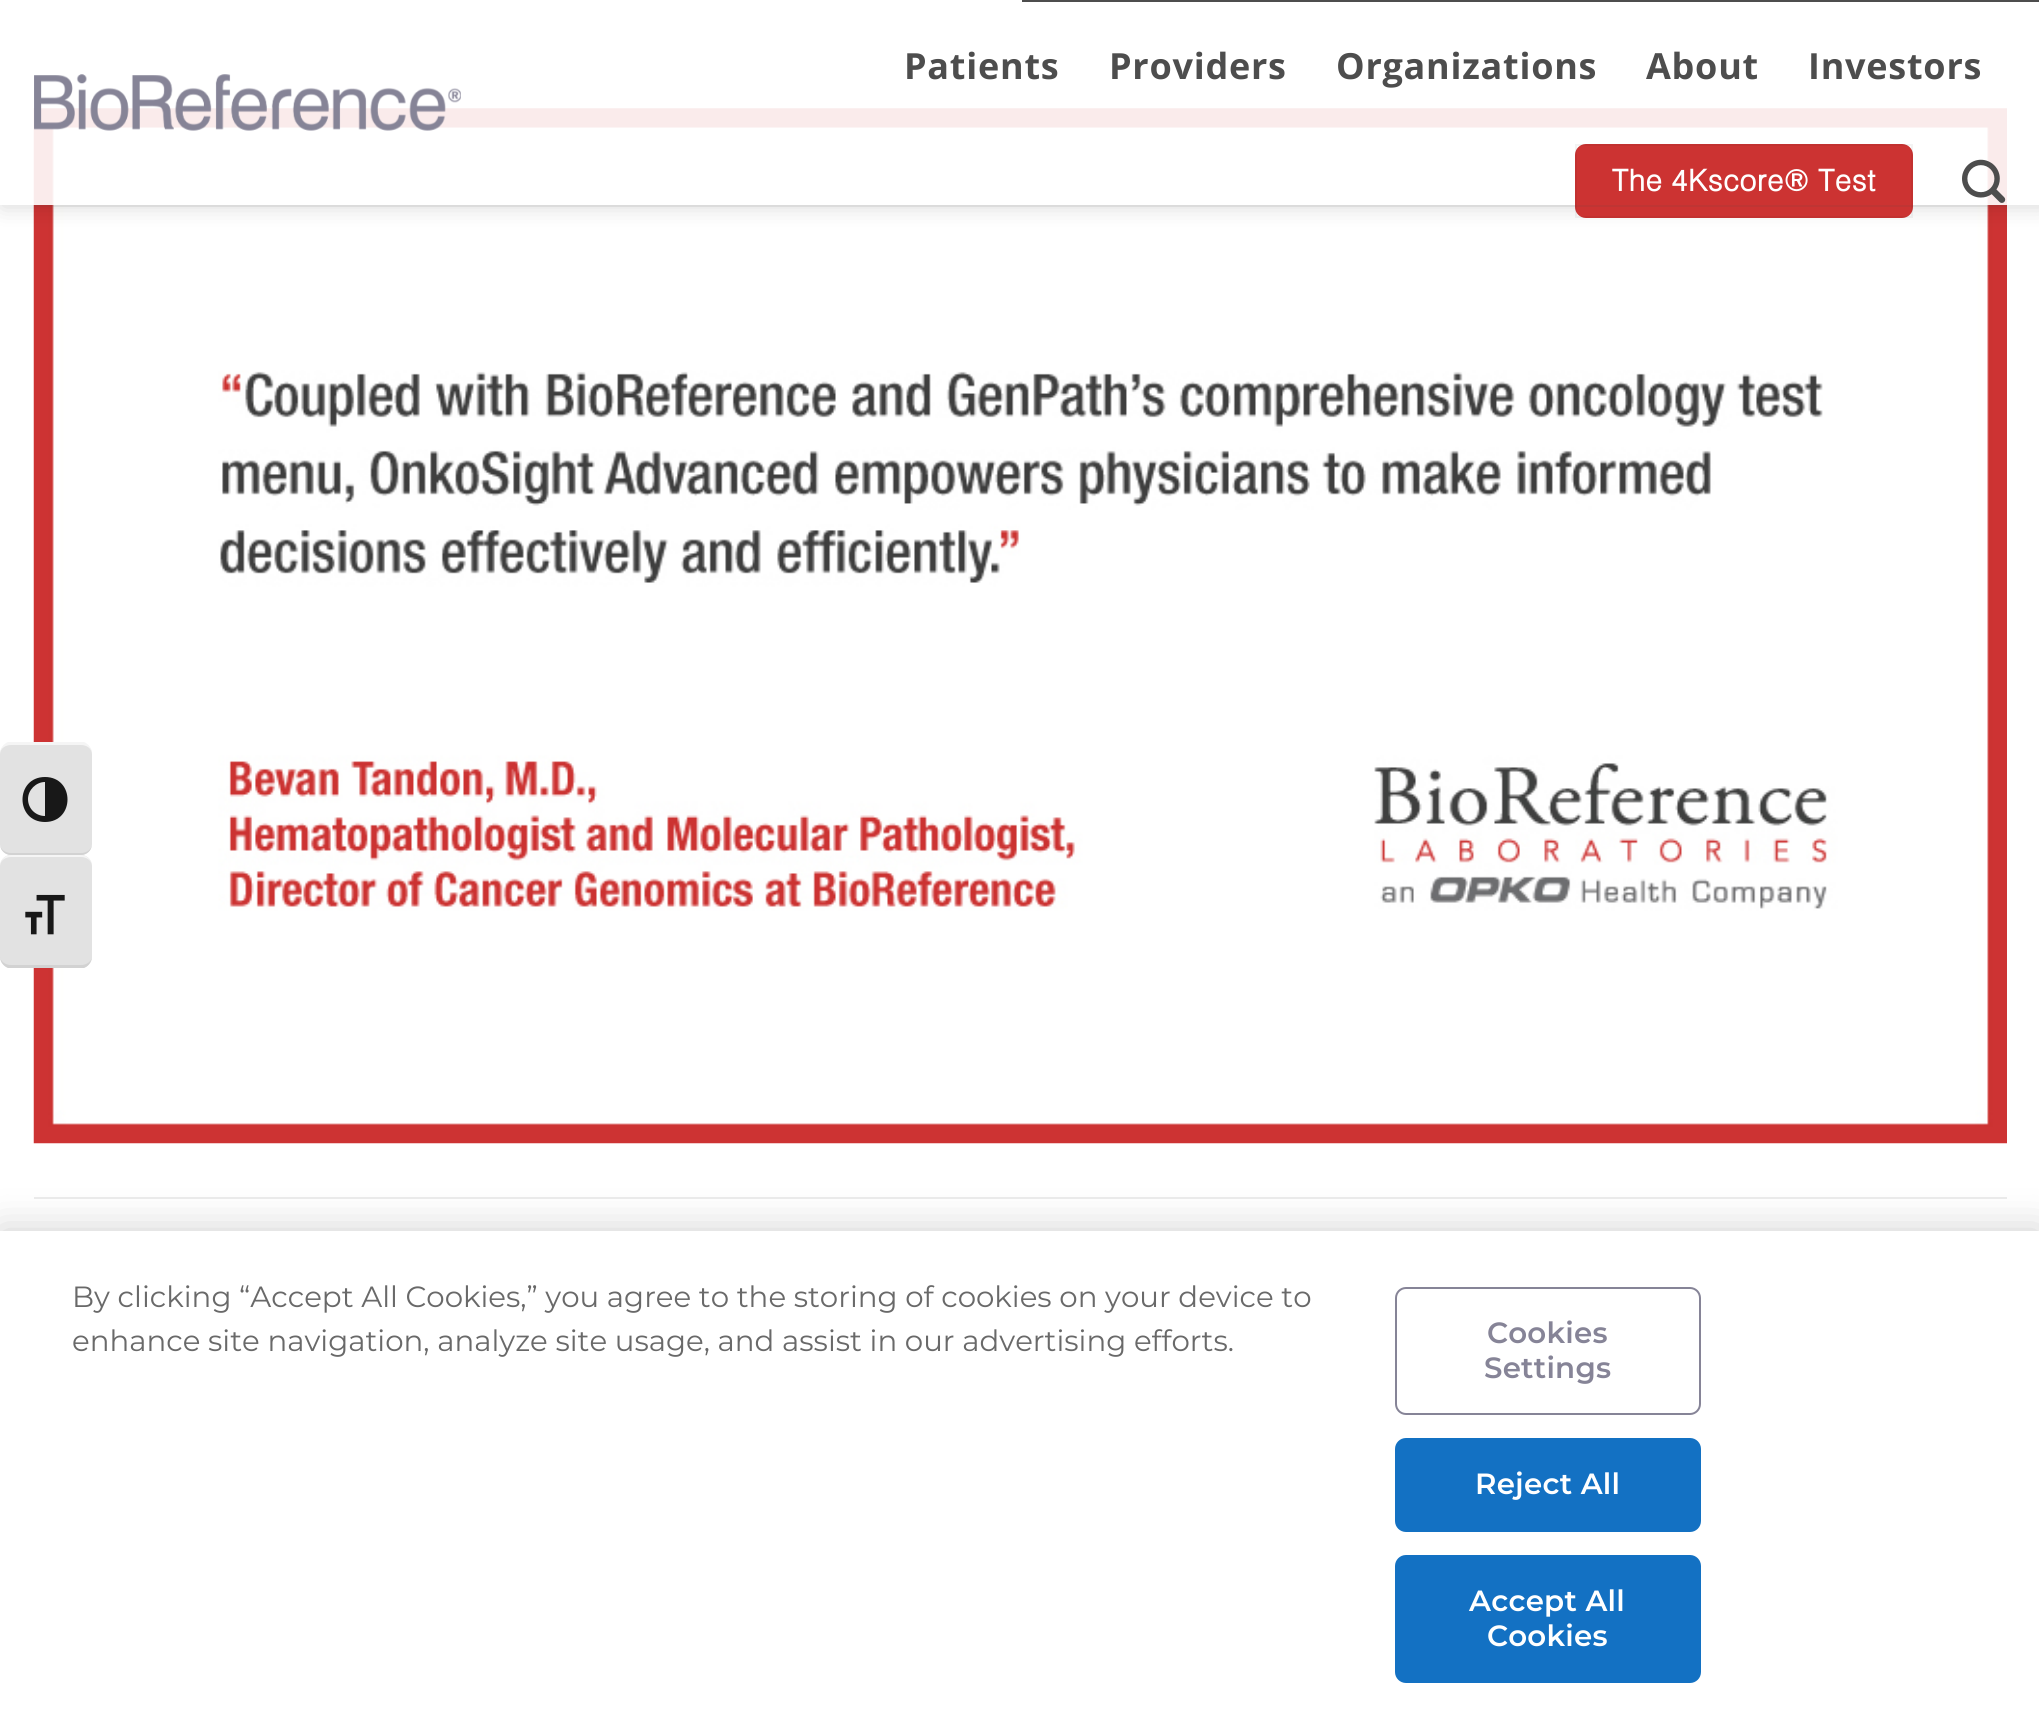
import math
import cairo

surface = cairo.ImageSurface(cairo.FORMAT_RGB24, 2039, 1727)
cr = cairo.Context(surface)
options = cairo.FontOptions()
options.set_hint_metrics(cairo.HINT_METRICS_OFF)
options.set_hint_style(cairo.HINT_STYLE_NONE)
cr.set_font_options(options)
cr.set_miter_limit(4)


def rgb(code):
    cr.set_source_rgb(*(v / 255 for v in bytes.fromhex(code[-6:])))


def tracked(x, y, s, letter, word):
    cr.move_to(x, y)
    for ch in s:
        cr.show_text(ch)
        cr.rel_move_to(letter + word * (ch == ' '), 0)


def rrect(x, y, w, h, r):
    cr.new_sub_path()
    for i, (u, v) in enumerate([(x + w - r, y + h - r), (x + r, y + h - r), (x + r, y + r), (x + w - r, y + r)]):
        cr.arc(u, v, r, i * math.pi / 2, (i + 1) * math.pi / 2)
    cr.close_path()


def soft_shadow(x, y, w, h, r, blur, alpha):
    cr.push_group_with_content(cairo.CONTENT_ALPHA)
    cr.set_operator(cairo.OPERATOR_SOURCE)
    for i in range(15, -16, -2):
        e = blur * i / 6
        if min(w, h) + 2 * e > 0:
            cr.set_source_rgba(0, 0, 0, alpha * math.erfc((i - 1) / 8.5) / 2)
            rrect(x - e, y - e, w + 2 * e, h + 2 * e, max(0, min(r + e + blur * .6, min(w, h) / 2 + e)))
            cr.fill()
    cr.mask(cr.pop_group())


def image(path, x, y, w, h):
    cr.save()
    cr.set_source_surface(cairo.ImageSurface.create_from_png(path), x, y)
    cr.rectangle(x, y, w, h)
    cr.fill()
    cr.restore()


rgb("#ffffff")
cr.paint()
image("img/3.png", 33, 108, 1974, 1036)
cr.save()
cr.set_fill_rule(cairo.FILL_RULE_EVEN_ODD)
cr.new_path()
cr.move_to(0, 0)
cr.line_to(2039, 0)
cr.line_to(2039, 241)
cr.line_to(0, 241)
cr.close_path()
cr.move_to(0, 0)
cr.line_to(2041, 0)
cr.line_to(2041, 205)
cr.line_to(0, 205)
cr.close_path()
cr.clip()
rgb("#000000")
soft_shadow(2, 2, 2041, 205, 0, 11, 0.15)
cr.restore()
cr.set_source_rgba(1, 1, 1, 0.9)
cr.rectangle(2, 108, 2037, 97)
cr.fill()
image("img/1.png", 34, 74, 427, 57)
rgb("#4d4d4d")
cr.rectangle(1022, 0, 1017, 2)
cr.fill()
rgb("#cc3332")
rrect(1575, 144, 338, 74, 11)
cr.fill()
cr.rectangle(1576, 145, 336, 72)
cr.set_source_rgba(0, 0, 0, 0.05)
cr.stroke()
image("img/2.png", 1962, 159, 44, 44)
cr.set_source_rgba(0.302, 0.302, 0.302, 0.1)
cr.rectangle(34, 205, 1973, 2)
cr.fill()
rgb("#ececec")
cr.rectangle(34, 1197, 1973, 2)
cr.fill()
rgb("#e2e2e2")
rrect(0, 743, 92, 112, 11)
cr.fill()
rgb("#f5f5f5")
cr.new_path()
cr.move_to(11, 745)
cr.line_to(81, 745)
cr.curve_to(87, 745, 92, 749, 92, 754)
cr.curve_to(92, 749, 89, 744, 84, 742)
cr.line_to(8, 742)
cr.curve_to(3, 744, 0, 749, 0, 754)
cr.curve_to(0, 749, 5, 745, 11, 745)
cr.close_path()
cr.fill()
rgb("#d2d2d2")
cr.new_path()
cr.move_to(81, 855)
cr.curve_to(87, 855, 92, 850, 92, 844)
cr.curve_to(92, 849, 87, 853, 81, 853)
cr.line_to(11, 853)
cr.curve_to(5, 853, 0, 849, 0, 844)
cr.curve_to(0, 850, 5, 855, 11, 855)
cr.close_path()
cr.fill()
rgb("#181818")
cr.new_path()
cr.move_to(45, 777)
cr.curve_to(15, 777, 15, 822, 45, 822)
cr.curve_to(75, 822, 75, 777, 45, 777)
cr.close_path()
cr.move_to(28, 799)
cr.curve_to(28, 790, 36, 782, 45, 782)
cr.line_to(45, 816)
cr.curve_to(36, 816, 28, 809, 28, 799)
cr.close_path()
cr.fill()
rgb("#e2e2e2")
rrect(0, 855, 92, 113, 11)
cr.fill()
rgb("#f5f5f5")
cr.new_path()
cr.move_to(11, 855)
cr.curve_to(5, 855, 0, 860, 0, 866)
cr.curve_to(0, 861, 5, 857, 11, 857)
cr.line_to(81, 857)
cr.curve_to(87, 857, 92, 861, 92, 866)
cr.curve_to(92, 860, 87, 855, 81, 855)
cr.close_path()
cr.fill()
rgb("#d2d2d2")
cr.new_path()
cr.move_to(84, 968)
cr.curve_to(89, 966, 92, 961, 92, 956)
cr.curve_to(92, 961, 87, 965, 81, 965)
cr.line_to(11, 965)
cr.curve_to(5, 965, 0, 961, 0, 956)
cr.curve_to(0, 961, 3, 966, 8, 968)
cr.close_path()
cr.fill()
image("img/4.png", 25, 894, 40, 41)
rgb("#000000")
soft_shadow(0, 1231, 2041, 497, 0, 20, 0.2)
rgb("#ffffff")
cr.rectangle(0, 1231, 2039, 496)
cr.fill()
rrect(1396, 1288, 304, 126, 10)
rgb("#868497")
cr.stroke()
rgb("#1371c3")
rrect(1396, 1439, 304, 92, 10)
cr.fill_preserve()
cr.stroke()
rrect(1396, 1556, 304, 126, 10)
cr.fill_preserve()
cr.stroke()
cr.select_font_face("Open Sans", cairo.FONT_SLANT_NORMAL, cairo.FONT_WEIGHT_BOLD)
cr.set_font_size(36)
rgb("#4d4d4d")
for x, y, s in [
    (904, 79, "Patients"),
    (1109, 79, "Providers"),
    (1336, 79, "Organizations"),
    (1646, 79, "About"),
    (1808, 79, "Investors"),
]:
    tracked(x, y, s, 0.75, 0)
cr.select_font_face("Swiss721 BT", cairo.FONT_SLANT_NORMAL, cairo.FONT_WEIGHT_BOLD)
cr.set_font_size(29.75)
rgb("#ffffff")
tracked(1612, 191, "The 4Kscore® Test", 0.9, 0)
cr.select_font_face("Montserrat")
cr.set_font_size(29.25)
rgb("#696969")
cr.move_to(72, 1307)
cr.show_text("By clicking “Accept All Cookies,” you agree to the storing of cookies on your device to")
cr.move_to(72, 1351)
cr.show_text("enhance site navigation, analyze site usage, and assist in our advertising efforts.")
cr.select_font_face("Montserrat SemiBold")
rgb("#868497")
tracked(1487, 1343, "Cookies", 0.25, 0)
tracked(1484, 1378, "Settings", 0.25, 0)
rgb("#ffffff")
for x, y, s in [
    (1475, 1494, "Reject All"),
    (1469, 1611, "Accept All"),
    (1487, 1646, "Cookies"),
]:
    tracked(x, y, s, 0.25, 0)
surface.write_to_png("page.png")
